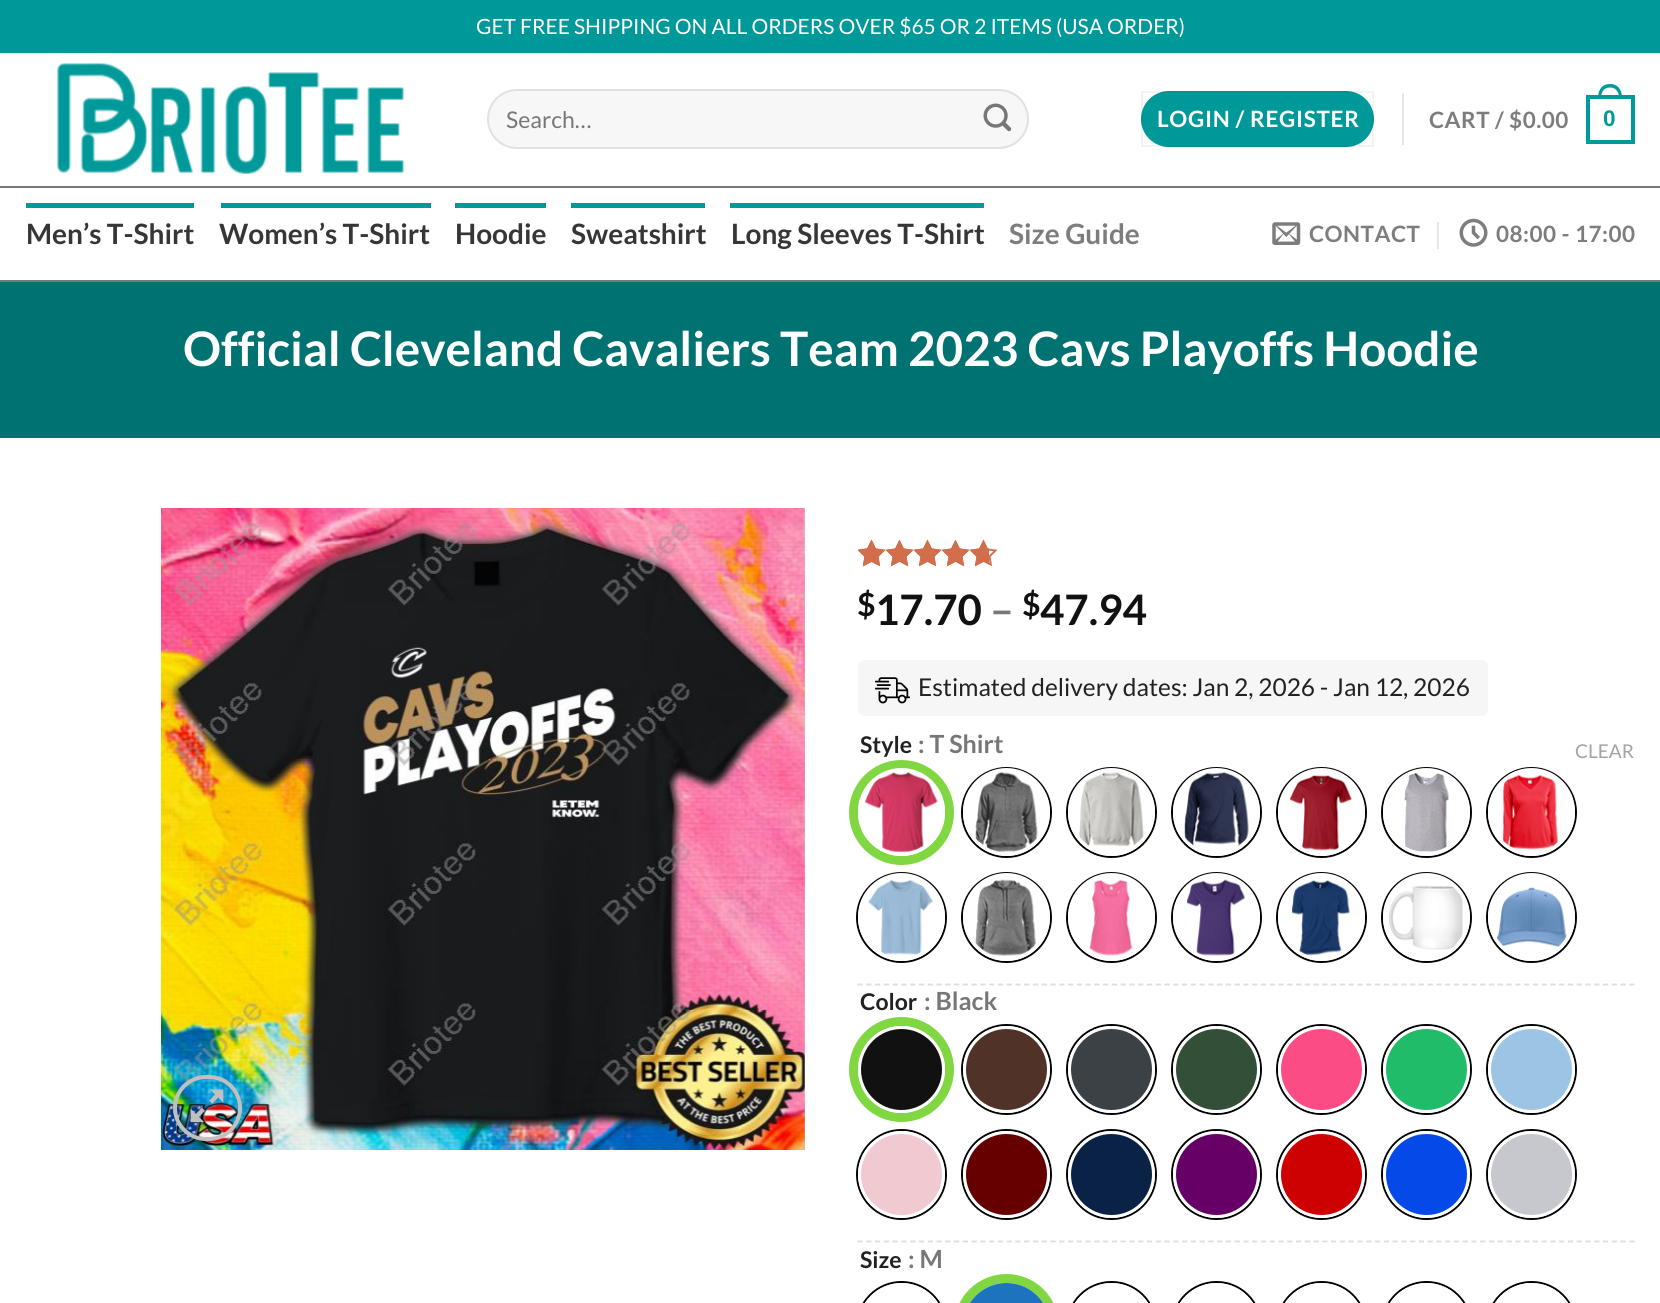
import math
import cairo

surface = cairo.ImageSurface(cairo.FORMAT_RGB24, 1660, 1303)
cr = cairo.Context(surface)
options = cairo.FontOptions()
options.set_hint_metrics(cairo.HINT_METRICS_OFF)
options.set_hint_style(cairo.HINT_STYLE_NONE)
cr.set_font_options(options)
cr.set_miter_limit(4)


def rgb(code):
    cr.set_source_rgb(*(v / 255 for v in bytes.fromhex(code[-6:])))


def tracked(x, y, s, letter, word):
    cr.move_to(x, y)
    for ch in s:
        cr.show_text(ch)
        cr.rel_move_to(letter + word * (ch == ' '), 0)


def rrect(x, y, w, h, r):
    cr.new_sub_path()
    for i, (u, v) in enumerate([(x + w - r, y + h - r), (x + r, y + h - r), (x + r, y + r), (x + w - r, y + r)]):
        cr.arc(u, v, r, i * math.pi / 2, (i + 1) * math.pi / 2)
    cr.close_path()


def image(path, x, y, w, h):
    cr.save()
    cr.set_source_surface(cairo.ImageSurface.create_from_png(path), x, y)
    cr.rectangle(x, y, w, h)
    cr.fill()
    cr.restore()


rgb("#ffffff")
cr.paint()
rgb("#009999")
cr.rectangle(0, 0, 1660, 53)
cr.fill()
image("img/1.png", 57, 62, 347, 112)
rgb("#f7f7f7")
rrect(487, 89, 542, 60, 30)
cr.fill()
rrect(488, 90, 540, 58, 29)
cr.set_source_rgba(0, 0, 0, 0.09)
cr.stroke()
image("img/2.png", 983, 103, 29, 29)
rgb("#009999")
rrect(1141, 91, 233, 56, 28)
cr.fill()
cr.rectangle(1142, 92, 231, 54)
cr.set_source_rgba(0, 0, 0, 0.05)
cr.stroke()
rgb("#e6e6e6")
cr.rectangle(1402, 93, 2, 52)
cr.fill()
cr.rectangle(1588, 97, 45, 45)
rgb("#009999")
cr.set_line_width(4)
cr.stroke()
cr.set_fill_rule(cairo.FILL_RULE_EVEN_ODD)
cr.new_path()
cr.move_to(1610, 84)
cr.curve_to(1618.5, 84, 1622, 90.5, 1622, 98)
cr.line_to(1598, 98)
cr.curve_to(1598, 90.5, 1601.5, 84, 1610, 84)
cr.close_path()
cr.move_to(1610, 87.5)
cr.curve_to(1616.5, 87.5, 1619, 92.5, 1619, 98)
cr.line_to(1601, 98)
cr.curve_to(1601, 92.5, 1603.5, 87.5, 1610, 87.5)
cr.close_path()
cr.fill()
for x, y, w, h, color in [
    (0, 186, 1660, 2, "#777777"),
    (0, 280, 1660, 2, "#777777"),
    (26, 203, 168, 5, "#009999"),
    (221, 203, 210, 5, "#009999"),
    (455, 203, 91, 5, "#009999"),
    (571, 203, 134, 5, "#009999"),
    (730, 203, 254, 5, "#009999"),
]:
    rgb(color)
    cr.rectangle(x, y, w, h)
    cr.fill()
image("img/3.png", 1272, 222, 29, 23)
rgb("#e6e6e6")
cr.rectangle(1437, 222, 2, 27)
cr.fill()
image("img/4.png", 1459, 218, 29, 29)
rgb("#007272")
cr.rectangle(0, 282, 1660, 156)
cr.fill()
image("img/5.png", 161, 508, 644, 642)
image("img/6.png", 804, 508, 1, 642)
rrect(175, 1077, 65, 62, 31)
rgb("#c0c0c0")
cr.stroke()
image("img/7.png", 190, 1089, 34, 34)
image("img/8.png", 858, 539, 140, 28)
image("img/9.png", 858, 539, 131, 28)
image("img/10.png", 858, 539, 17, 28)
rgb("#f6f6f6")
rrect(858, 660, 630, 56, 7)
cr.fill()
image("img/11.png", 875, 677, 35, 27)
cr.arc(901.5, 812.5, 48, 0, 2 * math.pi)
rgb("#81d742")
cr.set_line_width(9)
cr.stroke()
rgb("#ffffff")
rrect(858, 768, 87, 88, 43.5)
cr.fill()
image("img/12.png", 865, 772, 73, 81)
cr.arc(1006.5, 812.5, 44.5, 0, 2 * math.pi)
rgb("#000000")
cr.set_line_width(2)
cr.stroke()
rgb("#ffffff")
rrect(963, 768, 87, 88, 43.5)
cr.fill()
image("img/13.png", 975, 771, 63, 81)
cr.arc(1111.5, 812.5, 44.5, 0, 2 * math.pi)
rgb("#000000")
cr.stroke()
rgb("#ffffff")
rrect(1068, 768, 87, 88, 43.5)
cr.fill()
image("img/14.png", 1079, 772, 65, 75)
cr.arc(1216.5, 812.5, 44.5, 0, 2 * math.pi)
rgb("#000000")
cr.stroke()
rgb("#ffffff")
rrect(1173, 768, 87, 88, 43.5)
cr.fill()
image("img/15.png", 1184, 772, 65, 75)
cr.arc(1321.5, 812.5, 44.5, 0, 2 * math.pi)
rgb("#000000")
cr.stroke()
rgb("#ffffff")
rrect(1278, 768, 87, 88, 43.5)
cr.fill()
image("img/16.png", 1290, 775, 62, 76)
cr.arc(1426.5, 812.5, 44.5, 0, 2 * math.pi)
rgb("#000000")
cr.stroke()
rgb("#ffffff")
rrect(1383, 768, 87, 88, 43.5)
cr.fill()
image("img/17.png", 1404, 773, 45, 79)
cr.arc(1531.5, 812.5, 44.5, 0, 2 * math.pi)
rgb("#000000")
cr.stroke()
rgb("#ffffff")
rrect(1488, 768, 87, 88, 43.5)
cr.fill()
image("img/18.png", 1502, 774, 57, 76)
cr.arc(901.5, 917.5, 44.5, 0, 2 * math.pi)
rgb("#000000")
cr.stroke()
rgb("#ffffff")
rrect(858, 873, 87, 88, 43.5)
cr.fill()
image("img/19.png", 868, 879, 65, 76)
cr.arc(1006.5, 917.5, 44.5, 0, 2 * math.pi)
rgb("#000000")
cr.stroke()
rgb("#ffffff")
rrect(963, 873, 87, 88, 43.5)
cr.fill()
image("img/20.png", 975, 879, 62, 77)
cr.arc(1111.5, 917.5, 44.5, 0, 2 * math.pi)
rgb("#000000")
cr.stroke()
rgb("#ffffff")
rrect(1068, 873, 87, 88, 43.5)
cr.fill()
image("img/21.png", 1089, 879, 44, 77)
cr.arc(1216.5, 917.5, 44.5, 0, 2 * math.pi)
rgb("#000000")
cr.stroke()
rgb("#ffffff")
rrect(1173, 873, 87, 88, 43.5)
cr.fill()
image("img/22.png", 1187, 879, 58, 77)
cr.arc(1321.5, 917.5, 44.5, 0, 2 * math.pi)
rgb("#000000")
cr.stroke()
rgb("#ffffff")
rrect(1278, 873, 87, 88, 43.5)
cr.fill()
image("img/23.png", 1292, 880, 58, 76)
cr.arc(1426.5, 917.5, 44.5, 0, 2 * math.pi)
rgb("#000000")
cr.stroke()
rgb("#ffffff")
rrect(1383, 873, 87, 88, 43.5)
cr.fill()
image("img/24.png", 1389, 885, 74, 65)
cr.arc(1531.5, 917.5, 44.5, 0, 2 * math.pi)
rgb("#000000")
cr.stroke()
rgb("#ffffff")
rrect(1488, 873, 87, 88, 43.5)
cr.fill()
image("img/25.png", 1496, 887, 71, 60)
cr.new_path()
cr.move_to(857.5, 1241.5)
cr.line_to(1634.5, 1241.5)
rgb("#dddddd")
cr.set_line_width(1.8)
cr.set_dash([5.25, 3.52])
cr.stroke()
rrect(857, 1282, 89, 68, 44.5)
rgb("#000000")
cr.set_line_width(2)
cr.set_dash([])
cr.stroke()
rgb("#ffffff")
rrect(858, 1283, 87, 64, 43.5)
cr.fill()
rrect(958.5, 1278.5, 96, 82, 48)
rgb("#81d742")
cr.set_line_width(9)
cr.stroke()
rgb("#1e73be")
rrect(963, 1283, 87, 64, 43.5)
cr.fill()
rrect(1067, 1282, 89, 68, 44.5)
rgb("#000000")
cr.set_line_width(2)
cr.stroke()
rgb("#ffffff")
rrect(1068, 1283, 87, 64, 43.5)
cr.fill()
rrect(1172, 1282, 89, 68, 44.5)
rgb("#000000")
cr.stroke()
rgb("#ffffff")
rrect(1173, 1283, 87, 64, 43.5)
cr.fill()
rrect(1277, 1282, 89, 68, 44.5)
rgb("#000000")
cr.stroke()
rgb("#ffffff")
rrect(1278, 1283, 87, 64, 43.5)
cr.fill()
rrect(1382, 1282, 89, 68, 44.5)
rgb("#000000")
cr.stroke()
rgb("#ffffff")
rrect(1383, 1283, 87, 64, 43.5)
cr.fill()
rrect(1487, 1282, 89, 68, 44.5)
rgb("#000000")
cr.stroke()
rgb("#ffffff")
rrect(1488, 1283, 87, 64, 43.5)
cr.fill()
cr.new_path()
cr.move_to(857.5, 984.5)
cr.line_to(1634.5, 984.5)
rgb("#dddddd")
cr.set_line_width(1.8)
cr.set_dash([5.25, 3.52])
cr.stroke()
cr.arc(901.5, 1069.5, 48, 0, 2 * math.pi)
rgb("#81d742")
cr.set_line_width(9)
cr.set_dash([])
cr.stroke()
rgb("#ffffff")
cr.arc(901.5, 1069.5, 43.5, 0, 2 * math.pi)
cr.fill()
rgb("#111111")
cr.arc(901.5, 1069.5, 40.5, 0, 2 * math.pi)
cr.fill()
cr.arc(1006.5, 1069.5, 44.5, 0, 2 * math.pi)
rgb("#000000")
cr.set_line_width(2)
cr.stroke()
rgb("#ffffff")
cr.arc(1006.5, 1069.5, 43.5, 0, 2 * math.pi)
cr.fill()
rgb("#503228")
cr.arc(1006.5, 1069.5, 40.5, 0, 2 * math.pi)
cr.fill()
cr.arc(1111.5, 1069.5, 44.5, 0, 2 * math.pi)
rgb("#000000")
cr.stroke()
rgb("#ffffff")
cr.arc(1111.5, 1069.5, 43.5, 0, 2 * math.pi)
cr.fill()
rgb("#3c4146")
cr.arc(1111.5, 1069.5, 40.5, 0, 2 * math.pi)
cr.fill()
cr.arc(1216.5, 1069.5, 44.5, 0, 2 * math.pi)
rgb("#000000")
cr.stroke()
rgb("#ffffff")
cr.arc(1216.5, 1069.5, 43.5, 0, 2 * math.pi)
cr.fill()
rgb("#334f38")
cr.arc(1216.5, 1069.5, 40.5, 0, 2 * math.pi)
cr.fill()
cr.arc(1321.5, 1069.5, 44.5, 0, 2 * math.pi)
rgb("#000000")
cr.stroke()
rgb("#ffffff")
cr.arc(1321.5, 1069.5, 43.5, 0, 2 * math.pi)
cr.fill()
rgb("#fb4c85")
cr.arc(1321.5, 1069.5, 40.5, 0, 2 * math.pi)
cr.fill()
cr.arc(1426.5, 1069.5, 44.5, 0, 2 * math.pi)
rgb("#000000")
cr.stroke()
rgb("#ffffff")
cr.arc(1426.5, 1069.5, 43.5, 0, 2 * math.pi)
cr.fill()
rgb("#20bc69")
cr.arc(1426.5, 1069.5, 40.5, 0, 2 * math.pi)
cr.fill()
cr.arc(1531.5, 1069.5, 44.5, 0, 2 * math.pi)
rgb("#000000")
cr.stroke()
rgb("#ffffff")
cr.arc(1531.5, 1069.5, 43.5, 0, 2 * math.pi)
cr.fill()
rgb("#9cc4e4")
cr.arc(1531.5, 1069.5, 40.5, 0, 2 * math.pi)
cr.fill()
cr.arc(901.5, 1174.5, 44.5, 0, 2 * math.pi)
rgb("#000000")
cr.stroke()
rgb("#ffffff")
cr.arc(901.5, 1174.5, 43.5, 0, 2 * math.pi)
cr.fill()
rgb("#f0c9d1")
cr.arc(901.5, 1174.5, 40.5, 0, 2 * math.pi)
cr.fill()
cr.arc(1006.5, 1174.5, 44.5, 0, 2 * math.pi)
rgb("#000000")
cr.stroke()
rgb("#ffffff")
cr.arc(1006.5, 1174.5, 43.5, 0, 2 * math.pi)
cr.fill()
rgb("#660000")
cr.arc(1006.5, 1174.5, 40.5, 0, 2 * math.pi)
cr.fill()
cr.arc(1111.5, 1174.5, 44.5, 0, 2 * math.pi)
rgb("#000000")
cr.stroke()
rgb("#ffffff")
cr.arc(1111.5, 1174.5, 43.5, 0, 2 * math.pi)
cr.fill()
rgb("#0a2245")
cr.arc(1111.5, 1174.5, 40.5, 0, 2 * math.pi)
cr.fill()
cr.arc(1216.5, 1174.5, 44.5, 0, 2 * math.pi)
rgb("#000000")
cr.stroke()
rgb("#ffffff")
cr.arc(1216.5, 1174.5, 43.5, 0, 2 * math.pi)
cr.fill()
rgb("#660066")
cr.arc(1216.5, 1174.5, 40.5, 0, 2 * math.pi)
cr.fill()
cr.arc(1321.5, 1174.5, 44.5, 0, 2 * math.pi)
rgb("#000000")
cr.stroke()
rgb("#ffffff")
cr.arc(1321.5, 1174.5, 43.5, 0, 2 * math.pi)
cr.fill()
rgb("#cd0102")
cr.arc(1321.5, 1174.5, 40.5, 0, 2 * math.pi)
cr.fill()
cr.arc(1426.5, 1174.5, 44.5, 0, 2 * math.pi)
rgb("#000000")
cr.stroke()
rgb("#ffffff")
cr.arc(1426.5, 1174.5, 43.5, 0, 2 * math.pi)
cr.fill()
rgb("#054ae8")
cr.arc(1426.5, 1174.5, 40.5, 0, 2 * math.pi)
cr.fill()
cr.arc(1531.5, 1174.5, 44.5, 0, 2 * math.pi)
rgb("#000000")
cr.stroke()
rgb("#ffffff")
cr.arc(1531.5, 1174.5, 43.5, 0, 2 * math.pi)
cr.fill()
rgb("#c6c8cd")
cr.arc(1531.5, 1174.5, 40.5, 0, 2 * math.pi)
cr.fill()
cr.select_font_face("Lato")
cr.set_font_size(21)
rgb("#ffffff")
cr.move_to(476, 34)
cr.show_text("GET FREE SHIPPING ON ALL ORDERS OVER $65 OR 2 ITEMS (USA ORDER)")
cr.set_font_size(23)
rgb("#777777")
cr.move_to(506, 128)
cr.show_text("Search…")
cr.select_font_face("Lato", cairo.FONT_SLANT_NORMAL, cairo.FONT_WEIGHT_BOLD)
cr.set_font_size(22.5)
rgb("#ffffff")
tracked(1157, 127, "LOGIN / REGISTER", 0.7, 0)
rgb("#7d7d7d")
tracked(1429, 128, "CART / $0.00", 0.5, 0)
cr.select_font_face("Liberation Sans", cairo.FONT_SLANT_NORMAL, cairo.FONT_WEIGHT_BOLD)
rgb("#009999")
tracked(1603, 126, "0", 0.5, 0)
cr.select_font_face("Lato", cairo.FONT_SLANT_NORMAL, cairo.FONT_WEIGHT_BOLD)
cr.set_font_size(28)
rgb("#363636")
for x, y, s in [
    (26, 244, "Men’s T-Shirt"),
    (219, 244, "Women’s T-Shirt"),
    (455, 244, "Hoodie"),
    (571, 244, "Sweatshirt"),
    (731, 244, "Long Sleeves T-Shirt"),
]:
    cr.move_to(x, y)
    cr.show_text(s)
rgb("#7d7d7d")
cr.move_to(1009, 244)
cr.show_text("Size Guide")
cr.set_font_size(22.5)
tracked(1309, 242, "CONTACT", 0.5, 0)
tracked(1496, 242, "08:00 - 17:00", 0.5, 0)
cr.set_font_size(47.6)
rgb("#ffffff")
cr.move_to(183, 366)
cr.show_text("Official Cleveland Cavaliers Team 2023 Cavs Playoffs Hoodie")
cr.set_font_size(32)
rgb("#111111")
cr.move_to(857, 616)
cr.show_text("$")
cr.set_font_size(42)
cr.move_to(875, 625)
cr.show_text("17.70")
rgb("#777777")
cr.move_to(990, 625)
cr.show_text("–")
cr.set_font_size(32)
rgb("#111111")
cr.move_to(1022, 616)
cr.show_text("$")
cr.set_font_size(42)
cr.move_to(1040, 625)
cr.show_text("47.94")
cr.select_font_face("Lato")
cr.set_font_size(24.5)
rgb("#222222")
cr.move_to(918, 696)
cr.show_text("Estimated delivery dates: Jan 2, 2026 - Jan 12, 2026")
cr.select_font_face("Lato", cairo.FONT_SLANT_NORMAL, cairo.FONT_WEIGHT_BOLD)
cr.set_font_size(23)
cr.move_to(860, 753)
cr.show_text("Style")
cr.set_font_size(25)
rgb("#777777")
cr.move_to(918, 753)
cr.show_text(": T Shirt")
cr.select_font_face("Lato")
cr.set_font_size(19)
rgb("#a3a3a3")
cr.move_to(1575, 758)
cr.show_text("CLEAR")
cr.select_font_face("Lato", cairo.FONT_SLANT_NORMAL, cairo.FONT_WEIGHT_BOLD)
cr.set_font_size(23)
rgb("#222222")
cr.move_to(860, 1268)
cr.show_text("Size")
cr.set_font_size(25)
rgb("#777777")
cr.move_to(908, 1268)
cr.show_text(": M")
cr.set_font_size(23)
rgb("#222222")
cr.move_to(860, 1010)
cr.show_text("Color")
cr.set_font_size(25)
rgb("#777777")
cr.move_to(924, 1010)
cr.show_text(": Black")
surface.write_to_png("page.png")
